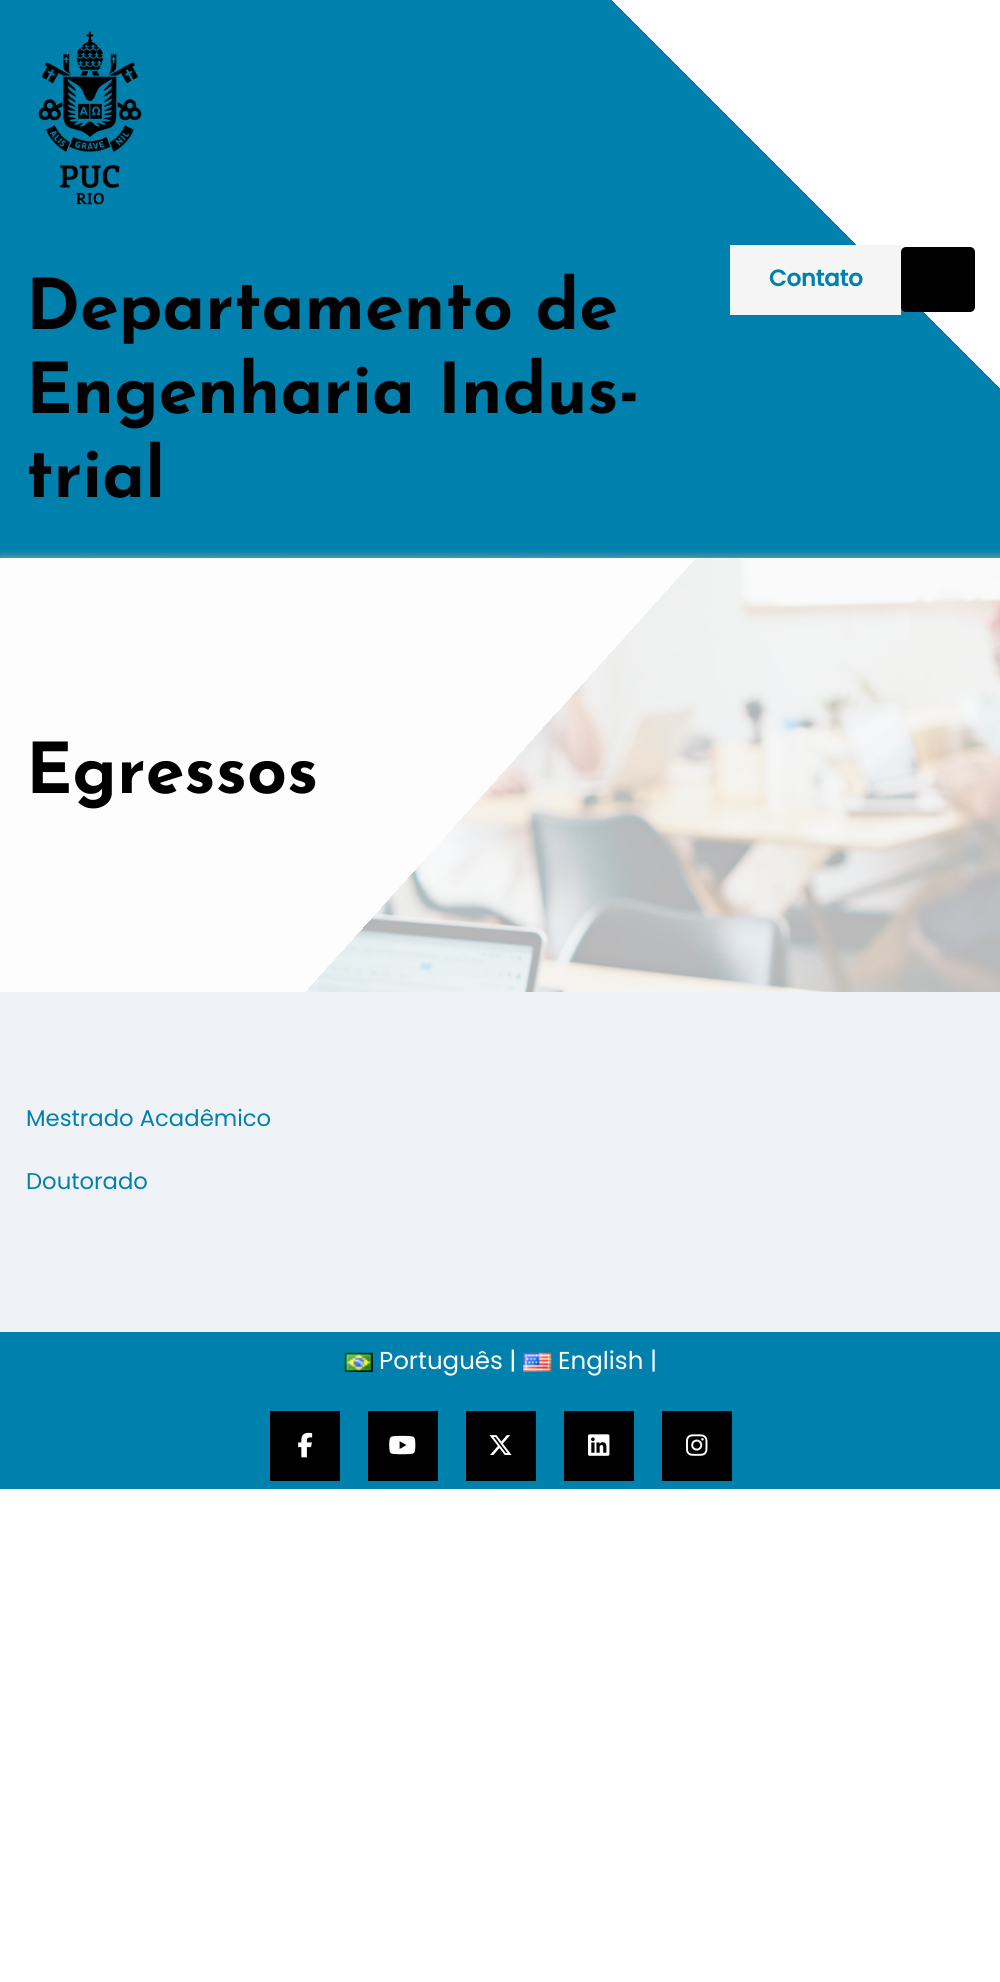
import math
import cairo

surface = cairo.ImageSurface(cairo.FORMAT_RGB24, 1000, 1982)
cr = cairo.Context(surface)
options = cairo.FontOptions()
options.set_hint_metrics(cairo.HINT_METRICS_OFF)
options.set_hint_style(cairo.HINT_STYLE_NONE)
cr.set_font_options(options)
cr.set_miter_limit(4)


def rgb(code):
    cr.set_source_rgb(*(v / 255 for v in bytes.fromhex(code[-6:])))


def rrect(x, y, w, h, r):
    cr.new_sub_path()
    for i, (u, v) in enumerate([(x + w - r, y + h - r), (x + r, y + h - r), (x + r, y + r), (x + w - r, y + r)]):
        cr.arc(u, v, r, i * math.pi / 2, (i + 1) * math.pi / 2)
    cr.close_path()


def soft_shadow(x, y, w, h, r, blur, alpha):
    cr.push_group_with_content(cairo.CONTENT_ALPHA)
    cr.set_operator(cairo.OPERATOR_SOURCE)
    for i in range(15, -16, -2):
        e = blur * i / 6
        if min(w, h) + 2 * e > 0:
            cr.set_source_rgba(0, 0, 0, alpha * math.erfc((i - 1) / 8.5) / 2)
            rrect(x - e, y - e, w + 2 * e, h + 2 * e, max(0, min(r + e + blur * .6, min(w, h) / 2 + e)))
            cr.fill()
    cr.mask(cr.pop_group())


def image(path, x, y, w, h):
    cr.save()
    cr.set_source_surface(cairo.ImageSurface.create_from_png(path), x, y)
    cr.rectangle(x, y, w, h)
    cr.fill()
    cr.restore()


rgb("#ffffff")
cr.paint()
gradient = cairo.LinearGradient(111, 669, 890, -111)
gradient.add_color_stop_rgba(0.75, 0, 0.506, 0.678, 1)
gradient.add_color_stop_rgba(0.75, 1, 1, 1, 1)
cr.set_source(gradient)
cr.rectangle(0, 0, 1000, 558)
cr.fill()
image("img/1.png", 38, 31, 104, 174)
rgb("#f5f5f5")
cr.rectangle(730, 245, 171, 70)
cr.fill()
rgb("#000000")
rrect(901, 247, 74, 65, 5)
cr.fill()
rgb("#aaaaaa")
soft_shadow(0, 558, 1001, 434, 0, 4.5, 1)
image("img/2.png", 0, 558, 1000, 434)
cr.set_source_rgba(1, 1, 1, 0.7)
cr.rectangle(0, 558, 1000, 434)
cr.fill()
rgb("#eff2f7")
cr.rectangle(0, 992, 1000, 340)
cr.fill()
rgb("#0081ad")
cr.rectangle(0, 1332, 1000, 157)
cr.fill()
image("img/3.png", 344, 1352, 29, 20)
image("img/4.png", 523, 1352, 29, 20)
rgb("#000000")
cr.rectangle(270, 1411, 70, 70)
cr.fill()
image("img/5.png", 298, 1432, 15, 26)
cr.rectangle(368, 1411, 70, 70)
cr.fill()
image("img/6.png", 389, 1435, 27, 20)
cr.rectangle(466, 1411, 70, 70)
cr.fill()
image("img/7.png", 489, 1435, 23, 20)
cr.rectangle(564, 1411, 70, 70)
cr.fill()
image("img/8.png", 588, 1434, 22, 22)
cr.rectangle(662, 1411, 70, 70)
cr.fill()
image("img/9.png", 686, 1434, 22, 22)
cr.select_font_face("Josefin Sans", cairo.FONT_SLANT_NORMAL, cairo.FONT_WEIGHT_BOLD)
cr.set_font_size(70)
for x, y, s in [
    (26, 329, "Departamento de"),
    (26, 413, "Engenharia Indus-"),
    (26, 497, "trial"),
]:
    cr.move_to(x, y)
    cr.show_text(s)
cr.select_font_face("Poppins", cairo.FONT_SLANT_NORMAL, cairo.FONT_WEIGHT_BOLD)
cr.set_font_size(22.75)
rgb("#0081ad")
cr.move_to(769, 286)
cr.show_text("Contato")
cr.select_font_face("Josefin Sans", cairo.FONT_SLANT_NORMAL, cairo.FONT_WEIGHT_BOLD)
cr.set_font_size(70)
rgb("#000000")
cr.move_to(26, 793)
cr.show_text("Egressos")
cr.select_font_face("Poppins")
cr.set_font_size(22.75)
rgb("#0081ad")
cr.move_to(26, 1126)
cr.show_text("Mestrado Acadêmico")
cr.move_to(26, 1189)
cr.show_text("Doutorado")
cr.set_font_size(24.5)
rgb("#ffffff")
cr.move_to(379, 1369)
cr.show_text("Português |")
cr.move_to(558, 1369)
cr.show_text("English |")
surface.write_to_png("page.png")
